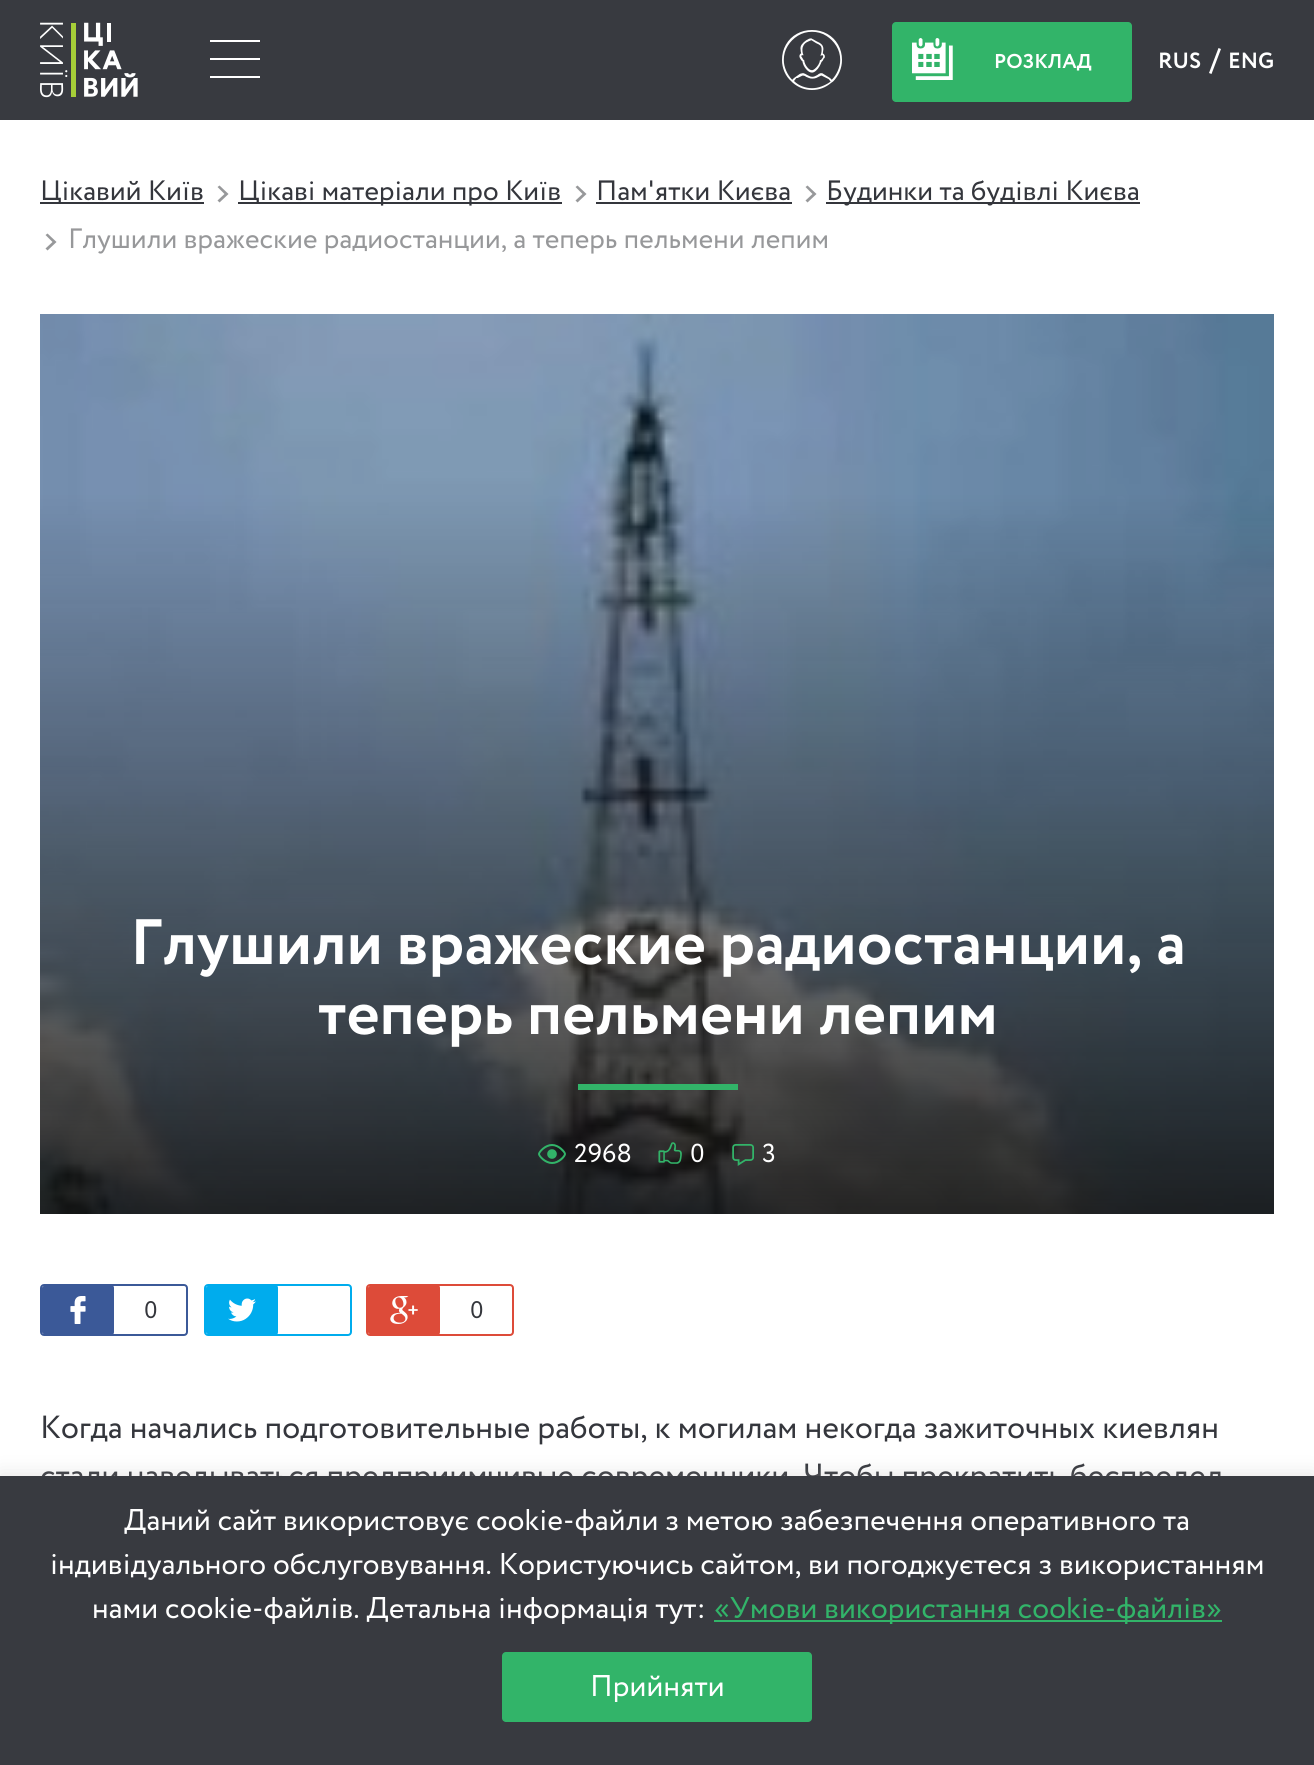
import math
import cairo

surface = cairo.ImageSurface(cairo.FORMAT_RGB24, 1314, 1765)
cr = cairo.Context(surface)
options = cairo.FontOptions()
options.set_hint_metrics(cairo.HINT_METRICS_OFF)
options.set_hint_style(cairo.HINT_STYLE_NONE)
cr.set_font_options(options)
cr.set_miter_limit(4)


def rgb(code):
    cr.set_source_rgb(*(v / 255 for v in bytes.fromhex(code[-6:])))


def rrect(x, y, w, h, r):
    cr.new_sub_path()
    for i, (u, v) in enumerate([(x + w - r, y + h - r), (x + r, y + h - r), (x + r, y + r), (x + w - r, y + r)]):
        cr.arc(u, v, r, i * math.pi / 2, (i + 1) * math.pi / 2)
    cr.close_path()


def soft_shadow(x, y, w, h, r, blur, alpha):
    cr.push_group_with_content(cairo.CONTENT_ALPHA)
    cr.set_operator(cairo.OPERATOR_SOURCE)
    for i in range(15, -16, -2):
        e = blur * i / 6
        if min(w, h) + 2 * e > 0:
            cr.set_source_rgba(0, 0, 0, alpha * math.erfc((i - 1) / 8.5) / 2)
            rrect(x - e, y - e, w + 2 * e, h + 2 * e, max(0, min(r + e + blur * .6, min(w, h) / 2 + e)))
            cr.fill()
    cr.mask(cr.pop_group())


def image(path, x, y, w, h):
    cr.save()
    cr.set_source_surface(cairo.ImageSurface.create_from_png(path), x, y)
    cr.rectangle(x, y, w, h)
    cr.fill()
    cr.restore()


rgb("#ffffff")
cr.paint()
rgb("#383a40")
cr.rectangle(0, 0, 1314, 120)
cr.fill()
image("img/1.png", 40, 22, 98, 76)
for x, y, w, h, color in [
    (210, 40, 50, 2, "#ffffff"),
    (210, 58, 50, 2, "#ffffff"),
    (210, 76, 50, 2, "#ffffff"),
]:
    rgb(color)
    cr.rectangle(x, y, w, h)
    cr.fill()
image("img/2.png", 782, 30, 60, 60)
rgb("#32b469")
rrect(892, 22, 240, 80, 4)
cr.fill()
image("img/3.png", 912, 38, 41, 42)
image("img/4.png", 995, 53, 97, 18)
image("img/5.png", 1160, 52, 41, 17)
rgb("#ffffff")
cr.new_path()
cr.move_to(1209, 73)
cr.line_to(1211.5, 74)
cr.line_to(1221, 49)
cr.line_to(1218.5, 48)
cr.close_path()
cr.fill()
image("img/6.png", 1230, 52, 43, 17)
image("img/7.png", 42, 180, 161, 22)
rgb("#34363c")
cr.rectangle(40, 202, 164, 2)
cr.fill()
rgb("#97989a")
cr.new_path()
cr.move_to(219.5, 202.5)
cr.line_to(217.5, 200.5)
cr.line_to(224.5, 194)
cr.line_to(217.5, 187)
cr.line_to(219.5, 185.5)
cr.line_to(228.5, 194)
cr.close_path()
cr.fill()
rgb("#34363c")
cr.rectangle(238, 202, 324, 2)
cr.fill()
image("img/8.png", 240, 180, 320, 26)
rgb("#97989a")
cr.new_path()
cr.move_to(577.5, 202.5)
cr.line_to(575.5, 200.5)
cr.line_to(582.5, 194)
cr.line_to(575.5, 187)
cr.line_to(577.5, 185.5)
cr.line_to(586.5, 194)
cr.close_path()
cr.fill()
image("img/9.png", 598, 180, 192, 21)
rgb("#34363c")
cr.rectangle(596, 202, 196, 2)
cr.fill()
rgb("#97989a")
cr.new_path()
cr.move_to(807.5, 202.5)
cr.line_to(805.5, 200.5)
cr.line_to(812.5, 194)
cr.line_to(805.5, 187)
cr.line_to(807.5, 185.5)
cr.line_to(816.5, 194)
cr.close_path()
cr.fill()
rgb("#34363c")
cr.rectangle(826, 202, 314, 2)
cr.fill()
image("img/10.png", 828, 180, 310, 26)
rgb("#97989a")
cr.new_path()
cr.move_to(47.5, 250.5)
cr.line_to(45.5, 248.5)
cr.line_to(52.5, 242)
cr.line_to(45.5, 235)
cr.line_to(47.5, 233.5)
cr.line_to(56.5, 242)
cr.close_path()
cr.fill()
image("img/11.png", 70, 228, 757, 26)
image("img/12.png", 40, 314, 1234, 900)
image("img/13.png", 136, 919, 1047, 58)
image("img/14.png", 319, 1004, 675, 43)
rgb("#32b469")
cr.rectangle(578, 1084, 160, 6)
cr.fill()
image("img/15.png", 538, 1144, 28, 20)
image("img/16.png", 575, 1143, 56, 20)
image("img/17.png", 658, 1142, 24, 22)
image("img/18.png", 691, 1143, 13, 20)
image("img/19.png", 732, 1144, 22, 22)
image("img/20.png", 763, 1143, 12, 20)
rrect(41, 1285, 146, 50, 3)
rgb("#3b5998")
cr.stroke()
cr.save()
rrect(42, 1286, 144, 48, 2)
cr.clip()
rrect(40, 1284, 74, 52, 4)
cr.fill()
cr.restore()
image("img/21.png", 70, 1296, 16, 28)
image("img/22.png", 145, 1301, 12, 18)
rrect(205, 1285, 146, 50, 3)
rgb("#00aced")
cr.stroke()
cr.save()
rrect(206, 1286, 144, 48, 2)
cr.clip()
rrect(204, 1284, 74, 52, 4)
cr.fill()
cr.restore()
image("img/23.png", 228, 1298, 28, 24)
rrect(367, 1285, 146, 50, 3)
rgb("#dd4b39")
cr.stroke()
cr.save()
rrect(368, 1286, 144, 48, 2)
cr.clip()
rrect(366, 1284, 74, 52, 4)
cr.fill()
cr.restore()
image("img/24.png", 390, 1296, 28, 28)
image("img/22.png", 471, 1301, 12, 18)
image("img/25.png", 43, 1415, 1174, 30)
image("img/26.png", 41, 1463, 1180, 13)
rgb("#acabab")
soft_shadow(0, 1474, 1314, 290, 0, 10, 0.3)
rgb("#383a40")
cr.rectangle(0, 1476, 1314, 289)
cr.fill()
image("img/27.png", 124, 1508, 1065, 28)
image("img/28.png", 52, 1552, 1211, 28)
image("img/29.png", 94, 1597, 609, 27)
rgb("#32b469")
cr.rectangle(714, 1620, 508, 2)
cr.fill()
image("img/30.png", 715, 1597, 506, 27)
rrect(502, 1652, 310, 70, 4)
cr.fill()
image("img/31.png", 593, 1675, 130, 27)
surface.write_to_png("page.png")
